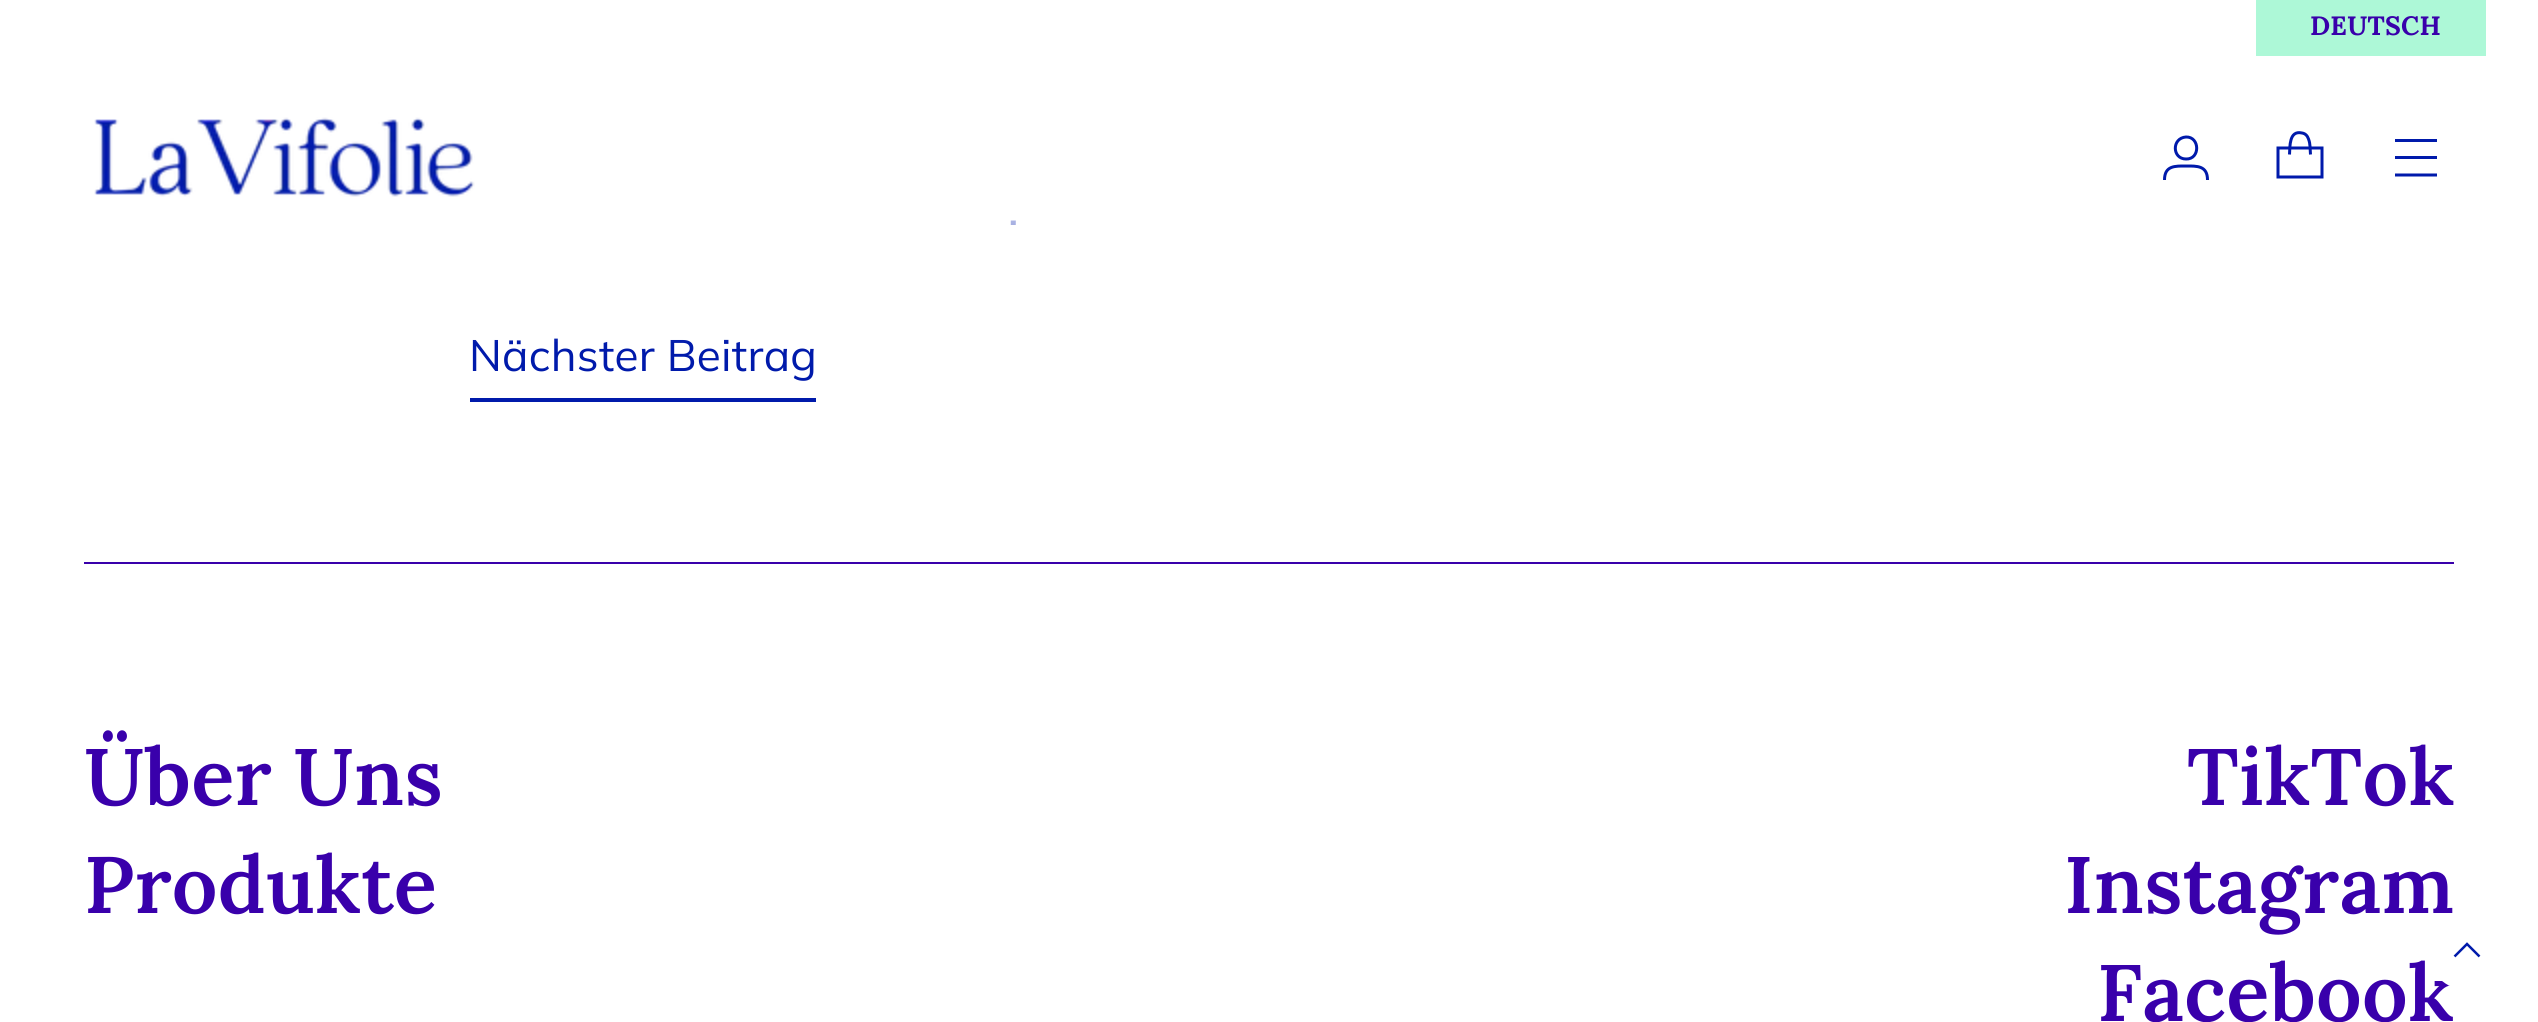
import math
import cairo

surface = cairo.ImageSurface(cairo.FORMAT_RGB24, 2538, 1022)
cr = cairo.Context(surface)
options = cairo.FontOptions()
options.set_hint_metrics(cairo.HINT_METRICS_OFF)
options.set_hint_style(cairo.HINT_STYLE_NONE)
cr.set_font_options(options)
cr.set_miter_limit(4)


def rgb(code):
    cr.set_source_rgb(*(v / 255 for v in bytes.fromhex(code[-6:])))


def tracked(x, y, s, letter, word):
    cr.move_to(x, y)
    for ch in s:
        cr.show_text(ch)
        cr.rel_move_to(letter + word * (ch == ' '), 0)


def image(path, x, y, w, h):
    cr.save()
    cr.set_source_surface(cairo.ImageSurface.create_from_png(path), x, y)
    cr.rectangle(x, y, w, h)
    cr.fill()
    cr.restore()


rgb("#ffffff")
cr.paint()
rgb("#adf8d7")
cr.rectangle(2256, 0, 230, 56)
cr.fill()
image("img/1.png", 94, 117, 381, 80)
cr.new_path()
cr.move_to(2186, 159)
cr.curve_to(2200.5, 159.5, 2200, 136.5, 2186, 137)
cr.curve_to(2171.5, 138, 2172, 159, 2186, 159)
cr.close_path()
cr.move_to(2164.5, 180)
cr.curve_to(2164.5, 165.5, 2175, 166, 2186, 166)
cr.curve_to(2197, 166, 2207.5, 165.5, 2207.5, 180)
rgb("#001aab")
cr.set_line_width(3)
cr.stroke()
cr.new_path()
cr.move_to(2310.5, 154.5)
cr.curve_to(2310, 149.5, 2310.5, 144, 2308.5, 139)
cr.curve_to(2307.5, 136, 2305.5, 133.5, 2302, 133)
cr.curve_to(2289, 130, 2290, 146.5, 2289.5, 154.5)
cr.set_line_join(cairo.LINE_JOIN_BEVEL)
cr.stroke()
cr.new_path()
cr.move_to(2322, 177)
cr.line_to(2322, 148)
cr.line_to(2278, 148)
cr.line_to(2278, 177)
cr.close_path()
cr.set_line_join(cairo.LINE_JOIN_MITER)
cr.stroke()
cr.new_path()
cr.move_to(2395, 157.5)
cr.line_to(2437, 157.5)
cr.move_to(2395, 140.5)
cr.line_to(2437, 140.5)
cr.move_to(2395, 175)
cr.line_to(2437, 175)
cr.stroke()
cr.rectangle(470, 398, 346, 4)
cr.fill()
rgb("#3900ab")
cr.rectangle(84, 562, 2370, 2)
cr.fill()
cr.select_font_face("Lora", cairo.FONT_SLANT_NORMAL, cairo.FONT_WEIGHT_BOLD)
cr.set_font_size(26.5)
tracked(2310, 35, "DEUTSCH", 0.25, 0)
cr.select_font_face("Muli")
cr.set_font_size(44)
rgb("#001aab")
tracked(1008, 225, ".", 0.25, 0)
tracked(469, 371, "Nächster Beitrag", 0.25, 0)
gradient = cairo.LinearGradient(1269, 0, 1269, 432)
gradient.add_color_stop_rgba(0.25, 1, 1, 1, 1)
gradient.add_color_stop_rgba(0.5, 1, 1, 1, 0.7)
gradient.add_color_stop_rgba(0.8, 1, 1, 1, 0)
cr.set_source(gradient)
cr.rectangle(473, 220, 542, 122)
cr.fill()
cr.select_font_face("Lora SemiBold")
cr.set_font_size(80)
rgb("#3900ab")
for x, y, s in [
    (84, 805, "Über Uns"),
    (84, 913, "Produkte"),
    (2187, 805, "TikTok"),
    (2064, 913, "Instagram"),
    (2097, 1021, "Facebook"),
]:
    tracked(x, y, s, 0.25, 0)
rgb("#ffffff")
cr.new_path()
cr.arc(2467, 951, 39, 0, 2 * math.pi)
cr.fill()
cr.new_path()
cr.move_to(2479.5, 956.5)
cr.line_to(2467, 944)
cr.line_to(2454.5, 956.5)
rgb("#001aab")
cr.set_line_width(2.5)
cr.stroke()
surface.write_to_png("page.png")
